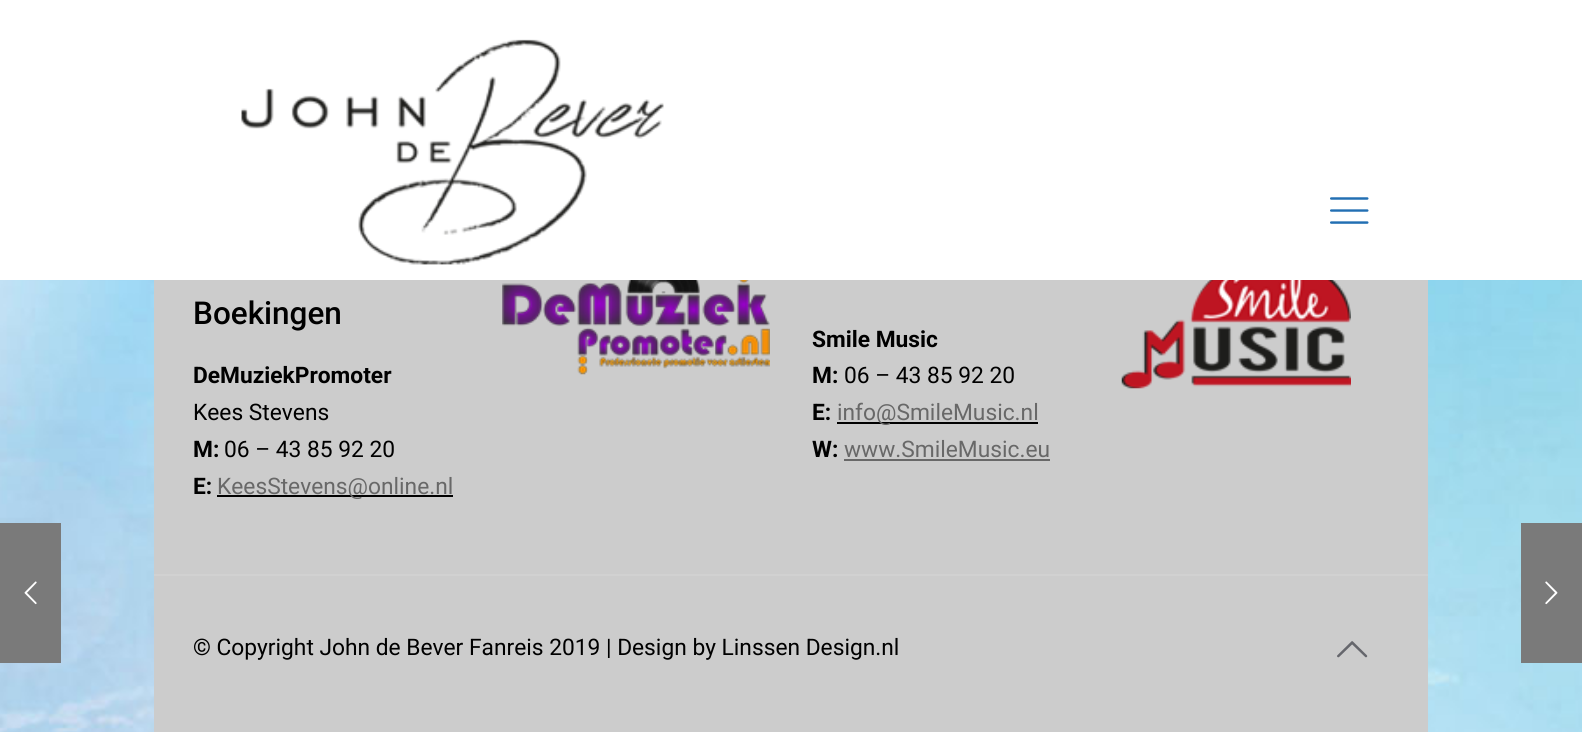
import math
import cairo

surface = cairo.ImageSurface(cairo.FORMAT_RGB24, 1582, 732)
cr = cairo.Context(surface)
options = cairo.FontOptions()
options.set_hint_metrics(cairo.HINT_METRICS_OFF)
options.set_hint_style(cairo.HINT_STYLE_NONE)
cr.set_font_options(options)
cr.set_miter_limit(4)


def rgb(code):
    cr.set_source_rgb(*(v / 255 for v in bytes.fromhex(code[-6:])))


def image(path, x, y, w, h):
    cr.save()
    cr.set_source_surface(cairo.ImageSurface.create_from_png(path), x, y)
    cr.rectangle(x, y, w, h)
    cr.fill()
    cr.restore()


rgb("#ffffff")
cr.paint()
image("img/1.png", 0, 280, 1582, 452)
rgb("#7a7a7a")
cr.rectangle(0, 523, 61, 140)
cr.fill()
image("img/2.png", 24, 581, 13, 24)
image("img/3.png", 241, 39, 423, 226)
image("img/4.png", 1330, 197, 39, 27)
rgb("#cccccc")
cr.rectangle(154, 280, 1274, 452)
cr.fill()
rgb("#000000")
cr.rectangle(217, 495, 236, 2)
cr.fill()
image("img/5.png", 502, 280, 268, 95)
cr.rectangle(837, 422, 201, 2)
cr.fill()
rgb("#686868")
cr.rectangle(844, 459, 206, 2)
cr.fill()
image("img/6.png", 1121, 280, 230, 109)
rgb("#d1d1d1")
cr.rectangle(154, 574, 1274, 2)
cr.fill()
image("img/7.png", 1337, 641, 31, 17)
rgb("#7a7a7a")
cr.rectangle(1521, 523, 61, 140)
cr.fill()
image("img/8.png", 1545, 581, 13, 24)
cr.select_font_face("Roboto Medium")
cr.set_font_size(31.5)
rgb("#000000")
cr.move_to(193, 324)
cr.show_text("Boekingen")
cr.select_font_face("Roboto", cairo.FONT_SLANT_NORMAL, cairo.FONT_WEIGHT_BOLD)
cr.set_font_size(22.75)
cr.move_to(193, 383)
cr.show_text("DeMuziekPromoter")
cr.select_font_face("Roboto")
cr.move_to(193, 420)
cr.show_text("Kees Stevens")
cr.select_font_face("Roboto", cairo.FONT_SLANT_NORMAL, cairo.FONT_WEIGHT_BOLD)
cr.move_to(193, 457)
cr.show_text("M:")
cr.select_font_face("Roboto")
cr.move_to(224, 457)
cr.show_text("06 – 43 85 92 20")
cr.select_font_face("Roboto", cairo.FONT_SLANT_NORMAL, cairo.FONT_WEIGHT_BOLD)
cr.move_to(193, 494)
cr.show_text("E:")
cr.select_font_face("Roboto")
rgb("#686868")
cr.move_to(217, 494)
cr.show_text("KeesStevens@online.nl")
cr.select_font_face("Roboto", cairo.FONT_SLANT_NORMAL, cairo.FONT_WEIGHT_BOLD)
rgb("#000000")
cr.move_to(812, 347)
cr.show_text("Smile Music")
cr.move_to(812, 383)
cr.show_text("M:")
cr.select_font_face("Roboto")
cr.move_to(844, 383)
cr.show_text("06 – 43 85 92 20")
cr.select_font_face("Roboto", cairo.FONT_SLANT_NORMAL, cairo.FONT_WEIGHT_BOLD)
cr.move_to(812, 420)
cr.show_text("E:")
cr.select_font_face("Roboto")
rgb("#686868")
cr.move_to(837, 420)
cr.show_text("info@SmileMusic.nl")
cr.select_font_face("Roboto", cairo.FONT_SLANT_NORMAL, cairo.FONT_WEIGHT_BOLD)
rgb("#000000")
cr.move_to(812, 457)
cr.show_text("W:")
cr.select_font_face("Roboto")
rgb("#686868")
cr.move_to(844, 457)
cr.show_text("www.SmileMusic.eu")
rgb("#000000")
cr.move_to(193, 655)
cr.show_text("© Copyright John de Bever Fanreis 2019 | Design by Linssen Design.nl")
surface.write_to_png("page.png")
